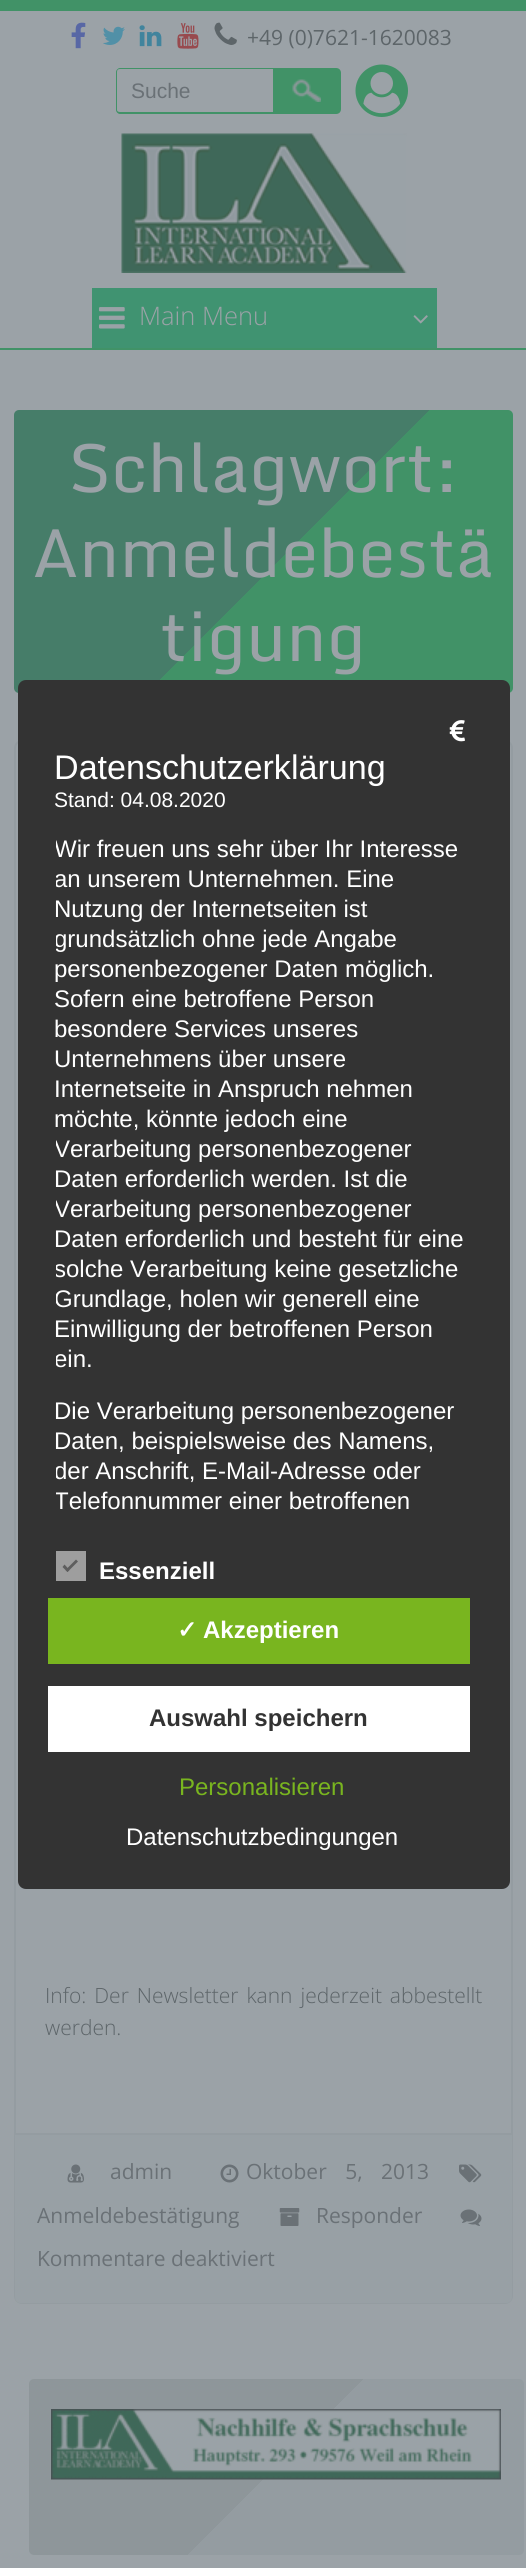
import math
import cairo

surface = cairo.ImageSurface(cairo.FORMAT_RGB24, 526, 2568)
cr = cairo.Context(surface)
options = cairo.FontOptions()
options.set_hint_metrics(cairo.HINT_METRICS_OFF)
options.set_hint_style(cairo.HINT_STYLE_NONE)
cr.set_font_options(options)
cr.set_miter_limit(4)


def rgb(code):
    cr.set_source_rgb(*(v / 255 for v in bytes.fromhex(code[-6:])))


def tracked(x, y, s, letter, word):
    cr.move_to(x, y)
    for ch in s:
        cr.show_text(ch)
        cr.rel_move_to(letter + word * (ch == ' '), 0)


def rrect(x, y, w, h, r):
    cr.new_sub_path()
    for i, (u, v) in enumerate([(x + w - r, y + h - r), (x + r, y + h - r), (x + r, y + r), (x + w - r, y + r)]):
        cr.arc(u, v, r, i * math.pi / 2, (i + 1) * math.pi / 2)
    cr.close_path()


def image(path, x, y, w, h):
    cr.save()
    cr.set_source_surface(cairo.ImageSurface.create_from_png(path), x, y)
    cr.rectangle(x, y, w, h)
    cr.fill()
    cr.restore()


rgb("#9ba2a7")
cr.paint()
rgb("#419267")
cr.rectangle(0, 0, 526, 11)
cr.fill()
cr.rectangle(0, 348, 526, 2)
cr.fill()
image("img/1.png", 71, 22, 15, 27)
image("img/2.png", 103, 26, 22, 19)
image("img/3.png", 139, 25, 23, 22)
image("img/4.png", 177, 23, 22, 26)
image("img/5.png", 214, 22, 23, 23)
cr.set_fill_rule(cairo.FILL_RULE_EVEN_ODD)
cr.new_path()
cr.move_to(120, 68)
cr.line_to(280, 68)
cr.line_to(280, 114)
cr.line_to(120, 114)
cr.curve_to(118, 114, 116, 112, 116, 110)
cr.line_to(116, 72)
cr.curve_to(116, 70, 118, 68, 120, 68)
cr.close_path()
cr.move_to(120, 69)
cr.line_to(280, 69)
cr.line_to(280, 112)
cr.line_to(120, 112)
cr.curve_to(118, 112, 117, 111, 117, 110)
cr.line_to(117, 72)
cr.curve_to(117, 70, 118, 69, 120, 69)
cr.close_path()
cr.fill()
cr.new_path()
cr.move_to(273, 68)
cr.line_to(336, 68)
cr.curve_to(339, 68, 341, 70, 341, 73)
cr.line_to(341, 109)
cr.curve_to(341, 112, 339, 114, 336, 114)
cr.line_to(273, 114)
cr.close_path()
cr.fill()
image("img/6.png", 292, 79, 29, 23)
image("img/7.png", 355, 64, 53, 53)
image("img/8.png", 121, 133, 286, 140)
rgb("#409371")
cr.rectangle(92, 288, 345, 60)
cr.fill()
image("img/9.png", 99, 307, 26, 22)
image("img/10.png", 413, 315, 15, 9)
gradient = cairo.LinearGradient(496, 759, 80, 343)
gradient.add_color_stop_rgba(0.5, 0.255, 0.573, 0.404, 1)
gradient.add_color_stop_rgba(0.5, 0.275, 0.49, 0.412, 1)
cr.set_source(gradient)
rrect(14, 410, 499, 283, 5)
cr.fill()
rrect(15, 741, 497, 1562, 7)
rgb("#949ca1")
cr.stroke()
rgb("#98a0a5")
cr.new_path()
cr.move_to(15, 2133)
cr.line_to(512, 2133)
cr.line_to(512, 2297)
cr.curve_to(512, 2300.5, 509.5, 2303, 506, 2303)
cr.line_to(21, 2303)
cr.curve_to(17.5, 2303, 15, 2300.5, 15, 2297)
cr.close_path()
cr.fill()
rgb("#949ca1")
cr.rectangle(15, 2133, 497, 2)
cr.fill()
image("img/11.png", 67, 2164, 17, 19)
image("img/12.png", 220, 2164, 19, 19)
image("img/13.png", 459, 2164, 23, 19)
image("img/14.png", 279, 2208, 21, 18)
image("img/15.png", 460, 2209, 22, 17)
gradient = cairo.LinearGradient(444, 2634, 108, 2299)
gradient.add_color_stop_rgba(0.5, 0.58, 0.612, 0.631, 1)
gradient.add_color_stop_rgba(0.5, 0.557, 0.588, 0.604, 1)
cr.set_source(gradient)
rrect(29, 2379, 495, 176, 5)
cr.fill()
image("img/16.png", 51, 2409, 450, 71)
rgb("#333333")
rrect(18, 680, 492, 1209, 8)
cr.fill()
image("img/17.png", 449, 720, 16, 22)
rgb("#9e9e9e")
cr.rectangle(56, 1551, 30, 30)
cr.fill()
rgb("#5e5e5e")
cr.set_fill_rule(cairo.FILL_RULE_WINDING)
cr.new_path()
cr.move_to(76, 1559.5)
cr.line_to(78, 1561.5)
cr.line_to(67.5, 1572)
cr.line_to(65.5, 1570)
cr.close_path()
cr.fill()
cr.new_path()
cr.move_to(64.5, 1564.5)
cr.line_to(69.5, 1570)
cr.line_to(67.5, 1572)
cr.line_to(62.5, 1567)
cr.close_path()
cr.fill()
rgb("#79b51f")
cr.rectangle(48, 1598, 422, 66)
cr.fill()
rgb("#ffffff")
cr.rectangle(48, 1686, 422, 66)
cr.fill()
cr.select_font_face("Open Sans")
cr.set_font_size(21)
rgb("#5d6569")
cr.move_to(247, 45)
cr.show_text("+49 (0)7621-1620083")
cr.select_font_face("Liberation Sans")
rgb("#6a7176")
cr.move_to(131, 98)
cr.show_text("Suche")
cr.select_font_face("Open Sans Light")
cr.set_font_size(25.5)
rgb("#9ba2a7")
cr.move_to(139, 325)
cr.show_text("Main Menu")
cr.select_font_face("Monda")
cr.set_font_size(67.5)
for x, y, s in [
    (68, 492, "Schlagwort:"),
    (32, 577, "Anmeldebestä"),
    (160, 661, "tigung"),
]:
    cr.move_to(x, y)
    cr.show_text(s)
cr.select_font_face("Open Sans Light")
cr.set_font_size(21)
rgb("#5d6569")
tracked(45, 2003, "Info: Der Newsletter kann jederzeit abbestellt", 0, 2.5)
cr.move_to(45, 2035)
cr.show_text("werden.")
cr.select_font_face("Open Sans")
rgb("#6a7176")
cr.move_to(110, 2179)
cr.show_text("admin")
tracked(246, 2179, "Oktober 5, 2013", 0, 13)
for x, y, s in [
    (37, 2223, "Anmeldebestätigung"),
    (316, 2223, "Responder"),
    (37, 2266, "Kommentare deaktiviert"),
]:
    cr.move_to(x, y)
    cr.show_text(s)
cr.select_font_face("Liberation Sans")
cr.set_font_size(34.1)
rgb("#ffffff")
cr.move_to(54, 779)
cr.show_text("Datenschutzerklärung")
cr.set_font_size(21)
cr.move_to(54, 807)
cr.show_text("Stand: 04.08.2020")
cr.save()
cr.rectangle(56, 747, 432, 771)
cr.clip()
cr.set_font_size(24)
cr.move_to(54, 857)
cr.show_text("Wir freuen uns sehr über Ihr Interesse")
cr.move_to(54, 887)
cr.show_text("an unserem Unternehmen. Eine")
cr.restore()
cr.set_font_size(24)
cr.move_to(54, 917)
cr.show_text("Nutzung der Internetseiten ist")
cr.save()
cr.rectangle(56, 747, 432, 771)
cr.clip()
cr.move_to(54, 947)
cr.show_text("grundsätzlich ohne jede Angabe")
cr.restore()
for x, y, s in [
    (54, 977, "personenbezogener Daten möglich."),
    (54, 1007, "Sofern eine betroffene Person"),
    (54, 1037, "besondere Services unseres"),
    (54, 1067, "Unternehmens über unsere"),
    (54, 1097, "Internetseite in Anspruch nehmen"),
    (54, 1127, "möchte, könnte jedoch eine"),
]:
    cr.move_to(x, y)
    cr.show_text(s)
cr.save()
cr.rectangle(56, 747, 432, 771)
cr.clip()
cr.move_to(54, 1157)
cr.show_text("Verarbeitung personenbezogener")
cr.restore()
cr.move_to(54, 1187)
cr.show_text("Daten erforderlich werden. Ist die")
cr.save()
cr.rectangle(56, 747, 432, 771)
cr.clip()
cr.move_to(54, 1217)
cr.show_text("Verarbeitung personenbezogener")
cr.restore()
cr.move_to(54, 1247)
cr.show_text("Daten erforderlich und besteht für eine")
cr.save()
cr.rectangle(56, 747, 432, 771)
cr.clip()
cr.move_to(54, 1277)
cr.show_text("solche Verarbeitung keine gesetzliche")
cr.move_to(54, 1307)
cr.show_text("Grundlage, holen wir generell eine")
cr.restore()
cr.move_to(54, 1337)
cr.show_text("Einwilligung der betroffenen Person")
cr.save()
cr.rectangle(56, 747, 432, 771)
cr.clip()
cr.move_to(54, 1367)
cr.show_text("ein.")
cr.restore()
cr.move_to(54, 1419)
cr.show_text("Die Verarbeitung personenbezogener")
cr.move_to(54, 1449)
cr.show_text("Daten, beispielsweise des Namens,")
cr.save()
cr.rectangle(56, 747, 432, 771)
cr.clip()
cr.move_to(54, 1479)
cr.show_text("der Anschrift, E-Mail-Adresse oder")
cr.move_to(54, 1509)
cr.show_text("Telefonnummer einer betroffenen")
cr.restore()
cr.select_font_face("Liberation Sans", cairo.FONT_SLANT_NORMAL, cairo.FONT_WEIGHT_BOLD)
cr.move_to(99, 1579)
cr.show_text("Essenziell")
cr.select_font_face("DejaVu Sans", cairo.FONT_SLANT_NORMAL, cairo.FONT_WEIGHT_BOLD)
cr.move_to(177, 1638)
cr.show_text("✓")
cr.select_font_face("Liberation Sans", cairo.FONT_SLANT_NORMAL, cairo.FONT_WEIGHT_BOLD)
cr.move_to(203, 1638)
cr.show_text("Akzeptieren")
rgb("#333333")
cr.move_to(149, 1726)
cr.show_text("Auswahl speichern")
cr.select_font_face("Liberation Sans")
rgb("#79b51f")
cr.move_to(179, 1795)
cr.show_text("Personalisieren")
rgb("#ffffff")
cr.move_to(126, 1845)
cr.show_text("Datenschutzbedingungen")
surface.write_to_png("page.png")
